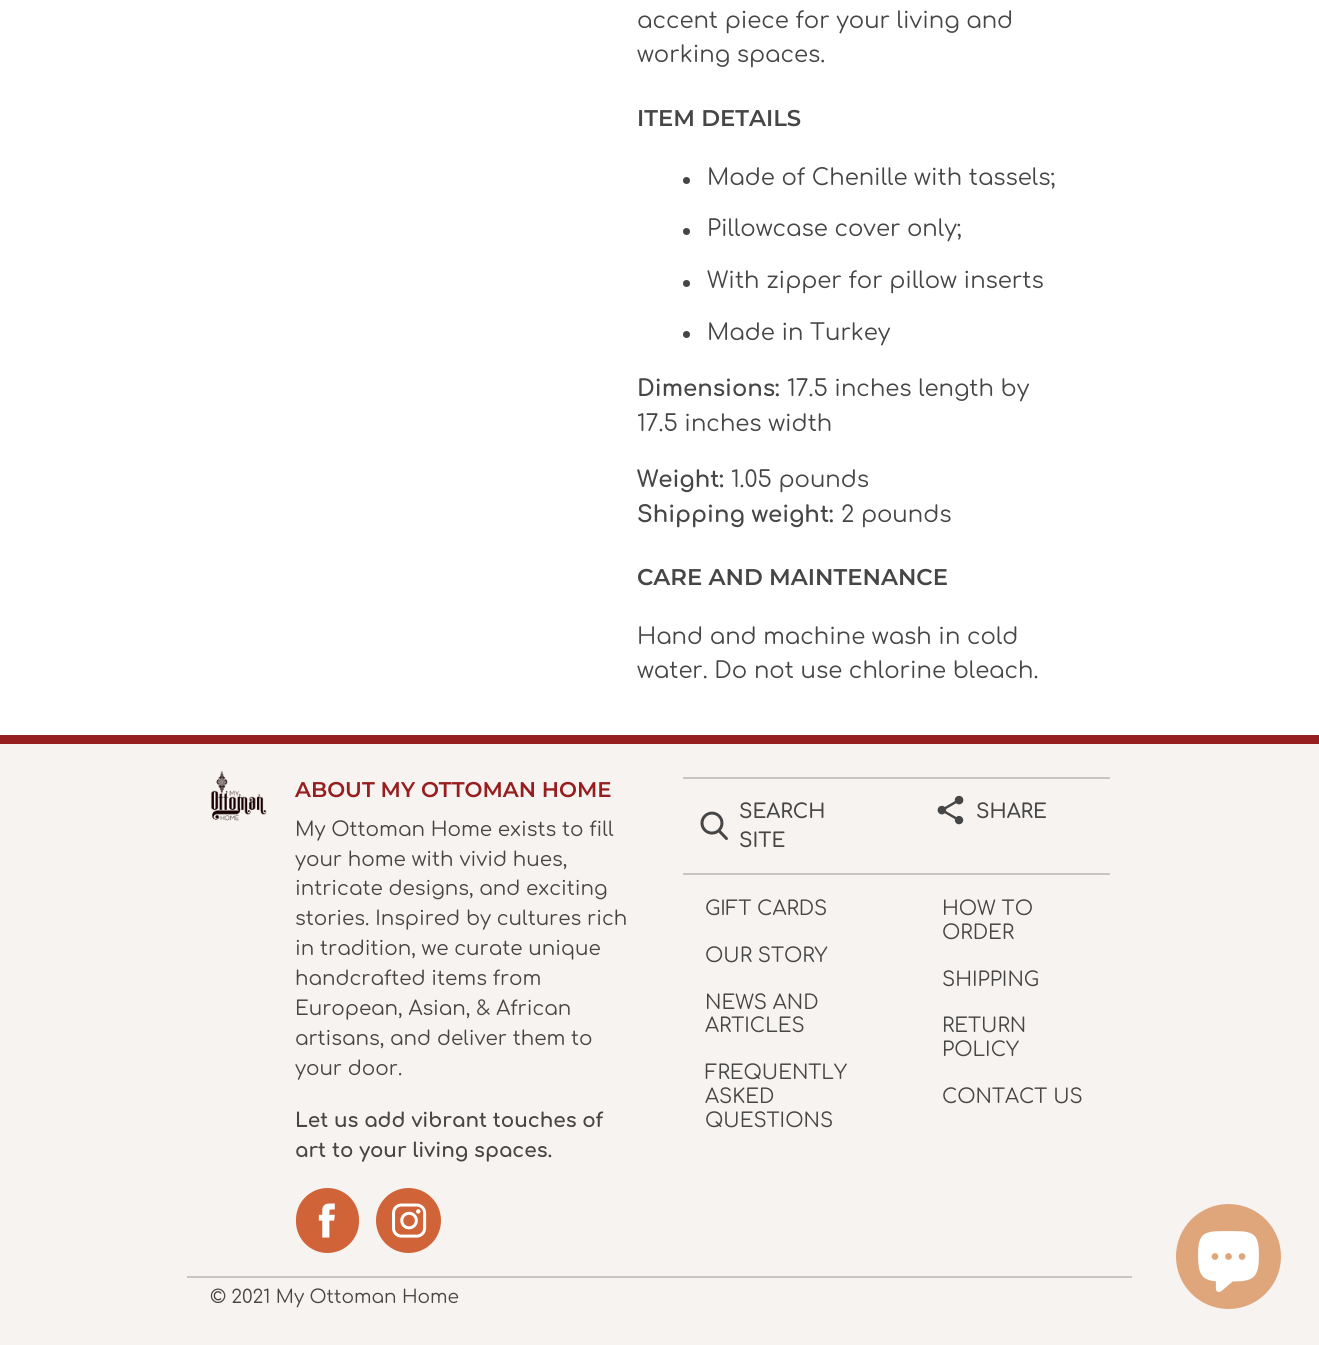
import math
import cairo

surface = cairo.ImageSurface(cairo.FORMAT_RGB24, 1319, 1345)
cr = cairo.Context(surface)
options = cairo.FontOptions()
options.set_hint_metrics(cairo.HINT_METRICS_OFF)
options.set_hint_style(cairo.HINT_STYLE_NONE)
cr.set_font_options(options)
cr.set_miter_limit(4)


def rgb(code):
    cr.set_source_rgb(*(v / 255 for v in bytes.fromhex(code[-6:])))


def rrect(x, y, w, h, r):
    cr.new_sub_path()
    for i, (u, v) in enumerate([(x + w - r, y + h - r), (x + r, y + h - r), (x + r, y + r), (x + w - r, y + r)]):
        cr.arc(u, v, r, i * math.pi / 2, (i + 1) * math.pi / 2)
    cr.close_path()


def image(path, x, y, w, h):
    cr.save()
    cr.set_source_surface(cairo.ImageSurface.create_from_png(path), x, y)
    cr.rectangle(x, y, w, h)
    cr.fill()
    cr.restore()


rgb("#ffffff")
cr.paint()
rgb("#464646")
cr.arc(686.5, 180.5, 3.5, 0, 2 * math.pi)
cr.fill()
cr.arc(686.5, 231.5, 3.5, 0, 2 * math.pi)
cr.fill()
cr.arc(686.5, 283.5, 3.5, 0, 2 * math.pi)
cr.fill()
cr.arc(686.5, 334.5, 3.5, 0, 2 * math.pi)
cr.fill()
rgb("#f7f3f0")
cr.rectangle(0, 744, 1319, 601)
cr.fill()
rgb("#961e1f")
cr.rectangle(0, 735, 1319, 9)
cr.fill()
image("img/1.png", 211, 771, 56, 50)
rgb("#d06338")
rrect(296, 1188, 63, 65, 31.5)
cr.fill()
image("img/2.png", 318, 1203, 17, 35)
cr.arc(408.5, 1220.5, 32.5, 0, 2 * math.pi)
cr.fill()
image("img/3.png", 392, 1203, 35, 35)
rgb("#c6c6c6")
cr.rectangle(683, 777, 427, 2)
cr.fill()
image("img/4.png", 700, 811, 28, 29)
image("img/5.png", 937, 795, 27, 30)
cr.rectangle(683, 873, 427, 2)
cr.fill()
cr.rectangle(187, 1276, 945, 2)
cr.fill()
rgb("#dfa67c")
cr.arc(1228.5, 1256.5, 52.5, 0, 2 * math.pi)
cr.fill()
image("img/6.png", 1198, 1231, 61, 61)
cr.select_font_face("Comfortaa")
cr.set_font_size(22.75)
rgb("#464646")
cr.move_to(637, 28)
cr.show_text("accent piece for your living and")
cr.move_to(637, 62)
cr.show_text("working spaces.")
cr.select_font_face("Montserrat SemiBold")
cr.move_to(637, 126)
cr.show_text("ITEM DETAILS")
cr.select_font_face("Comfortaa")
for x, y, s in [
    (707, 185, "Made of Chenille with tassels;"),
    (707, 236, "Pillowcase cover only;"),
    (707, 288, "With zipper for pillow inserts"),
    (707, 340, "Made in Turkey"),
]:
    cr.move_to(x, y)
    cr.show_text(s)
cr.select_font_face("Comfortaa", cairo.FONT_SLANT_NORMAL, cairo.FONT_WEIGHT_BOLD)
cr.move_to(637, 396)
cr.show_text("Dimensions:")
cr.select_font_face("Comfortaa")
cr.move_to(787, 396)
cr.show_text("17.5 inches length by")
cr.move_to(637, 431)
cr.show_text("17.5 inches width")
cr.select_font_face("Comfortaa", cairo.FONT_SLANT_NORMAL, cairo.FONT_WEIGHT_BOLD)
cr.move_to(637, 487)
cr.show_text("Weight:")
cr.select_font_face("Comfortaa")
cr.move_to(731, 487)
cr.show_text("1.05 pounds")
cr.select_font_face("Comfortaa", cairo.FONT_SLANT_NORMAL, cairo.FONT_WEIGHT_BOLD)
cr.move_to(637, 522)
cr.show_text("Shipping weight:")
cr.select_font_face("Comfortaa")
cr.move_to(841, 522)
cr.show_text("2 pounds")
cr.select_font_face("Montserrat SemiBold")
cr.move_to(637, 585)
cr.show_text("CARE AND MAINTENANCE")
cr.select_font_face("Comfortaa")
cr.move_to(637, 644)
cr.show_text("Hand and machine wash in cold")
cr.move_to(637, 678)
cr.show_text("water. Do not use chlorine bleach.")
cr.select_font_face("Montserrat SemiBold")
cr.set_font_size(21.3)
rgb("#961e1f")
cr.move_to(295, 797)
cr.show_text("ABOUT MY OTTOMAN HOME")
cr.select_font_face("Comfortaa")
cr.set_font_size(19.9)
rgb("#464646")
for x, y, s in [
    (295, 836, "My Ottoman Home exists to fill"),
    (295, 866, "your home with vivid hues,"),
    (295, 895, "intricate designs, and exciting"),
    (295, 925, "stories. Inspired by cultures rich"),
    (295, 955, "in tradition, we curate unique"),
    (295, 985, "handcrafted items from"),
    (295, 1015, "European, Asian, & African"),
    (295, 1045, "artisans, and deliver them to"),
    (295, 1075, "your door."),
]:
    cr.move_to(x, y)
    cr.show_text(s)
cr.select_font_face("Comfortaa", cairo.FONT_SLANT_NORMAL, cairo.FONT_WEIGHT_BOLD)
cr.move_to(295, 1127)
cr.show_text("Let us add vibrant touches of")
cr.move_to(295, 1157)
cr.show_text("art to your living spaces.")
cr.select_font_face("Comfortaa SemiBold")
for x, y, s in [
    (739, 818, "SEARCH"),
    (739, 847, "SITE"),
    (976, 818, "SHARE"),
]:
    cr.move_to(x, y)
    cr.show_text(s)
cr.select_font_face("Comfortaa")
for x, y, s in [
    (705, 915, "GIFT CARDS"),
    (705, 962, "OUR STORY"),
    (705, 1009, "NEWS AND"),
    (705, 1032, "ARTICLES"),
    (705, 1079, "FREQUENTLY"),
    (705, 1103, "ASKED"),
    (705, 1127, "QUESTIONS"),
    (942, 915, "HOW TO"),
    (942, 939, "ORDER"),
    (942, 986, "SHIPPING"),
    (942, 1032, "RETURN"),
    (942, 1056, "POLICY"),
    (942, 1103, "CONTACT US"),
]:
    cr.move_to(x, y)
    cr.show_text(s)
cr.set_font_size(18.5)
cr.move_to(210, 1303)
cr.show_text("© 2021 My Ottoman Home")
surface.write_to_png("page.png")
